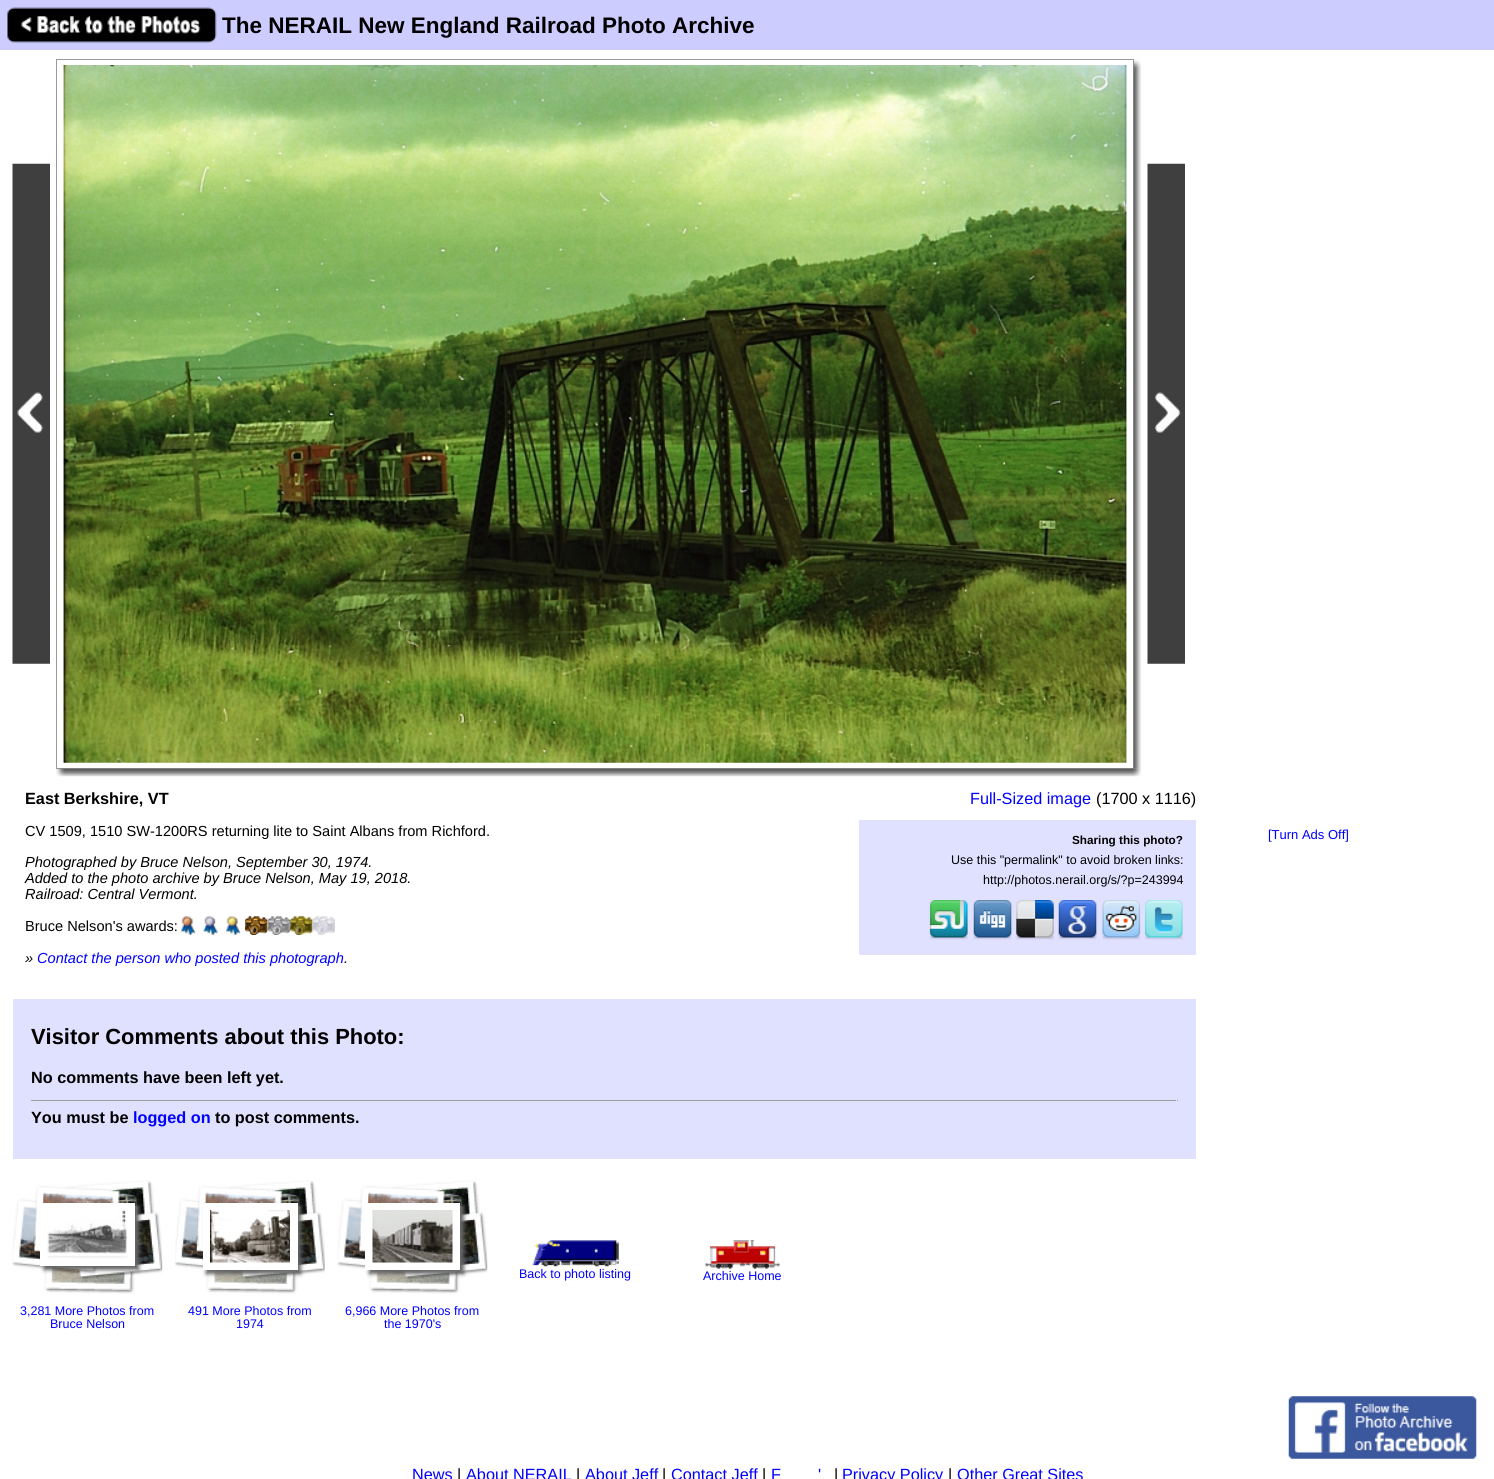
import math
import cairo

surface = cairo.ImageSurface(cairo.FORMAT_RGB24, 1494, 1479)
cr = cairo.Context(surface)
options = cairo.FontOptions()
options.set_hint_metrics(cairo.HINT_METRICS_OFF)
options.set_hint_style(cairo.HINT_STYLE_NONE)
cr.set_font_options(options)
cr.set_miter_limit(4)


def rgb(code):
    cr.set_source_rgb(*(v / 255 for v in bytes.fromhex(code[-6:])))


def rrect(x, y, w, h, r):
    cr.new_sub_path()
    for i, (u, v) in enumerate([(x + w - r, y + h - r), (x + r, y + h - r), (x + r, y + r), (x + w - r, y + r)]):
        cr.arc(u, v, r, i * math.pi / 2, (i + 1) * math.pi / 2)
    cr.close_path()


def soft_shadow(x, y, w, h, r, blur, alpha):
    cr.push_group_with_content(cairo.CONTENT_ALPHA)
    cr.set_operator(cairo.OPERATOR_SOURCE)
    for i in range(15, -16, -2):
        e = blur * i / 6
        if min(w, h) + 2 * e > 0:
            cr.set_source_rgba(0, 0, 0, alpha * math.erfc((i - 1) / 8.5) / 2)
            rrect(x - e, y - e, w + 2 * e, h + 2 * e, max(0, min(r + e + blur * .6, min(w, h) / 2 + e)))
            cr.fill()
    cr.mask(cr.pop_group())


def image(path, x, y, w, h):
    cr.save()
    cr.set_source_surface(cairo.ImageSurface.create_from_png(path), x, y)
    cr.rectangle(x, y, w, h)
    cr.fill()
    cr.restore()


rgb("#ffffff")
cr.paint()
rgb("#ccccff")
cr.rectangle(0, 0, 1494, 50)
cr.fill()
image("img/1.png", 7, 7, 210, 36)
image("img/2.png", 12, 163, 38, 501)
cr.rectangle(56.5, 59.5, 1077, 709)
rgb("#9a9a9a")
cr.set_line_width(1)
cr.stroke()
image("img/3.png", 63, 65, 1064, 698)
image("img/4.png", 63, 65, 1064, 698)
image("img/5.png", 1133, 59, 8, 710)
image("img/6.png", 1147, 163, 38, 501)
image("img/7.png", 56, 768, 1078, 9)
image("img/8.png", 1133, 768, 8, 9)
image("img/9.png", 181, 916, 15, 19)
image("img/10.png", 203, 916, 15, 19)
image("img/11.png", 226, 916, 15, 19)
image("img/12.png", 245, 916, 23, 19)
image("img/13.png", 267, 916, 23, 19)
image("img/14.png", 290, 916, 23, 19)
image("img/15.png", 312, 916, 23, 19)
rgb("#e0e0ff")
cr.rectangle(859, 820, 337, 135)
cr.fill()
image("img/16.png", 929, 900, 39, 40)
image("img/17.png", 973, 900, 39, 40)
image("img/18.png", 1015, 900, 40, 40)
image("img/19.png", 1058, 900, 39, 40)
image("img/20.png", 1102, 900, 39, 40)
image("img/21.png", 1144, 900, 39, 40)
for x, y, w, h, color in [
    (13, 999, 1183, 160, "#e0e0ff"),
    (31, 1100, 1147, 1, "#9f9f9f"),
    (1176, 1100, 1, 1, "#eeeeee"),
]:
    rgb(color)
    cr.rectangle(x, y, w, h)
    cr.fill()
image("img/22.png", 532, 1240, 87, 27)
image("img/23.png", 705, 1240, 75, 29)
image("img/24.png", 12, 1180, 151, 114)
rgb("#666666")
soft_shadow(44, 1206, 95, 64, 0, 2, 1)
rgb("#ffffff")
cr.rectangle(40, 1203, 95, 63)
cr.fill()
image("img/25.png", 47, 1210, 81, 49)
image("img/26.png", 175, 1180, 150, 114)
rgb("#666666")
soft_shadow(206, 1206, 95, 68, 0, 2, 1)
rgb("#ffffff")
cr.rectangle(203, 1203, 95, 67)
cr.fill()
image("img/27.png", 210, 1210, 80, 53)
image("img/28.png", 337, 1180, 151, 114)
rgb("#666666")
soft_shadow(369, 1206, 95, 68, 0, 2, 1)
rgb("#ffffff")
cr.rectangle(365, 1203, 95, 67)
cr.fill()
image("img/29.png", 372, 1210, 81, 53)
image("img/30.png", 1288, 1396, 189, 63)
cr.select_font_face("Liberation Sans", cairo.FONT_SLANT_NORMAL, cairo.FONT_WEIGHT_BOLD)
cr.set_font_size(22.5)
rgb("#000000")
cr.move_to(222, 33)
cr.show_text("The NERAIL New England Railroad Photo Archive")
cr.set_font_size(16.25)
cr.move_to(25, 804)
cr.show_text("East Berkshire, VT")
cr.select_font_face("Liberation Sans")
cr.set_font_size(14.6)
cr.move_to(25, 836)
cr.show_text("CV 1509, 1510 SW-1200RS returning lite to Saint Albans from Richford.")
cr.select_font_face("Liberation Sans", cairo.FONT_SLANT_ITALIC)
for x, y, s in [
    (25, 867, "Photographed by Bruce Nelson, September 30, 1974."),
    (25, 883, "Added to the photo archive by Bruce Nelson, May 19, 2018."),
    (25, 899, "Railroad: Central Vermont."),
]:
    cr.move_to(x, y)
    cr.show_text(s)
cr.select_font_face("Liberation Sans")
cr.move_to(25, 931)
cr.show_text("Bruce Nelson's awards:")
cr.select_font_face("Liberation Sans", cairo.FONT_SLANT_ITALIC)
cr.move_to(25, 963)
cr.show_text("»")
rgb("#0000ff")
cr.move_to(37, 963)
cr.show_text("Contact the person who posted this photograph")
rgb("#000000")
cr.move_to(344, 963)
cr.show_text(".")
cr.select_font_face("Liberation Sans")
cr.set_font_size(16.25)
rgb("#0000ff")
cr.move_to(970, 804)
cr.show_text("Full-Sized image")
rgb("#000000")
cr.move_to(1096, 804)
cr.show_text("(1700 x 1116)")
cr.select_font_face("Liberation Sans", cairo.FONT_SLANT_NORMAL, cairo.FONT_WEIGHT_BOLD)
cr.set_font_size(11.75)
cr.move_to(1072, 844)
cr.show_text("Sharing this photo?")
cr.select_font_face("Liberation Sans")
cr.set_font_size(12.5)
cr.move_to(951, 864)
cr.show_text("Use this \"permalink\" to avoid broken links:")
cr.move_to(983, 884)
cr.show_text("http://photos.nerail.org/s/?p=243994")
cr.set_font_size(13)
rgb("#0000ff")
cr.move_to(1268, 839)
cr.show_text("[Turn Ads Off]")
cr.select_font_face("Liberation Sans", cairo.FONT_SLANT_NORMAL, cairo.FONT_WEIGHT_BOLD)
cr.set_font_size(21.9)
rgb("#000000")
cr.move_to(31, 1044)
cr.show_text("Visitor Comments about this Photo:")
cr.set_font_size(16.25)
cr.move_to(31, 1083)
cr.show_text("No comments have been left yet.")
cr.move_to(31, 1123)
cr.show_text("You must be")
rgb("#0000ff")
cr.move_to(133, 1123)
cr.show_text("logged on")
rgb("#000000")
cr.move_to(215, 1123)
cr.show_text("to post comments.")
cr.select_font_face("Liberation Sans")
cr.set_font_size(12.5)
rgb("#0000ff")
for x, y, s in [
    (519, 1278, "Back to photo listing"),
    (703, 1280, "Archive Home"),
    (20, 1315, "3,281 More Photos from"),
    (50, 1328, "Bruce Nelson"),
    (188, 1315, "491 More Photos from"),
    (236, 1328, "1974"),
    (345, 1315, "6,966 More Photos from"),
    (384, 1328, "the 1970's"),
]:
    cr.move_to(x, y)
    cr.show_text(s)
cr.set_font_size(16.25)
cr.move_to(412, 1480)
cr.show_text("News")
rgb("#000000")
cr.move_to(457, 1480)
cr.show_text("|")
rgb("#0000ff")
cr.move_to(466, 1480)
cr.show_text("About NERAIL")
rgb("#000000")
cr.move_to(576, 1480)
cr.show_text("|")
rgb("#0000ff")
cr.move_to(585, 1480)
cr.show_text("About Jeff")
rgb("#000000")
cr.move_to(662, 1480)
cr.show_text("|")
rgb("#0000ff")
cr.move_to(671, 1480)
cr.show_text("Contact Jeff")
rgb("#000000")
cr.move_to(762, 1480)
cr.show_text("|")
rgb("#0000ff")
cr.move_to(771, 1480)
cr.show_text("F")
cr.move_to(818, 1480)
cr.show_text("'")
rgb("#000000")
cr.move_to(834, 1480)
cr.show_text("|")
rgb("#0000ff")
cr.move_to(842, 1480)
cr.show_text("Privacy Policy")
rgb("#000000")
cr.move_to(948, 1480)
cr.show_text("|")
rgb("#0000ff")
cr.move_to(957, 1480)
cr.show_text("Other Great Sites")
surface.write_to_png("page.png")
